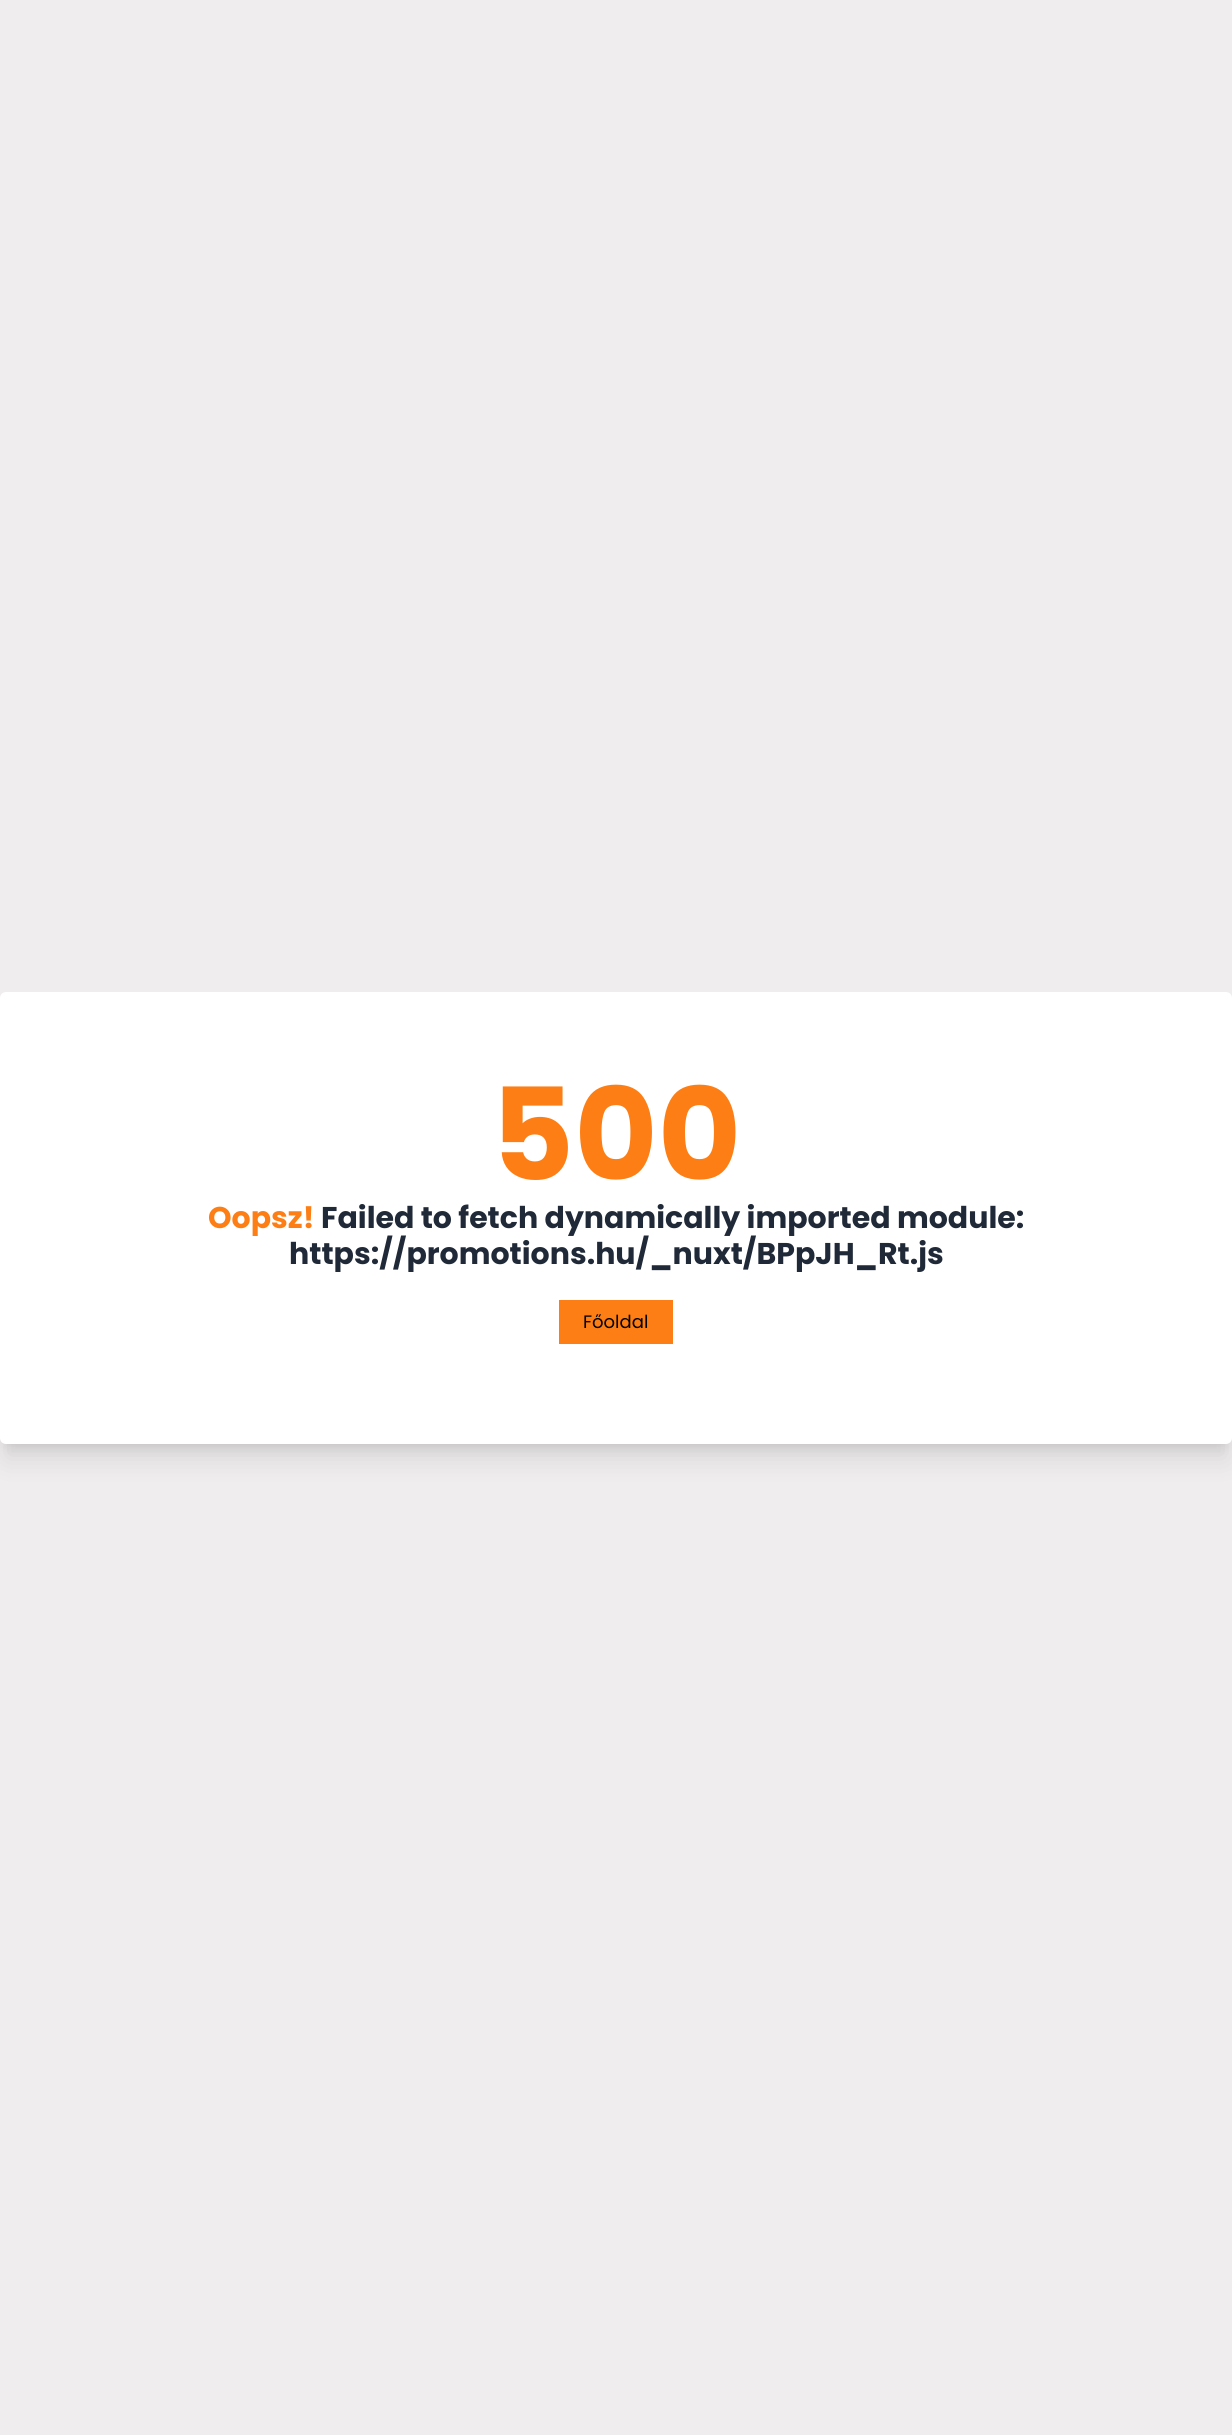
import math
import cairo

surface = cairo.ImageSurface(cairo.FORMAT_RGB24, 1232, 2435)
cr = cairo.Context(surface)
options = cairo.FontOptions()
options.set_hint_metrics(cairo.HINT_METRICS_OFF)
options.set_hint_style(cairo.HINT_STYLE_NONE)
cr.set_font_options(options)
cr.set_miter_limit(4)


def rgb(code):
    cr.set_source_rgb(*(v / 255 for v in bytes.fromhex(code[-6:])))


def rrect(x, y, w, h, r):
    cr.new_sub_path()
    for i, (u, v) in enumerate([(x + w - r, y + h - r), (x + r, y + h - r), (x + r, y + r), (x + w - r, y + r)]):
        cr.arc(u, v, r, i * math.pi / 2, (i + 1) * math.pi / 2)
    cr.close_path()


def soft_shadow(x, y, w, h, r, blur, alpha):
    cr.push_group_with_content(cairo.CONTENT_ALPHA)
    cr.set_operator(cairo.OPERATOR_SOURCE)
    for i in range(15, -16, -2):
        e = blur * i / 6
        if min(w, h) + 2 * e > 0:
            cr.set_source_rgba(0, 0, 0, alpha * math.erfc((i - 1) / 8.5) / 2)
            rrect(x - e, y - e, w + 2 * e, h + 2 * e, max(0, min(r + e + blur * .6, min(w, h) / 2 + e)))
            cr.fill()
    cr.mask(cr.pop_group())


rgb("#efeded")
cr.paint()
rgb("#000000")
soft_shadow(6, 1006, 1220, 440, 0, 5, 0.1)
soft_shadow(5, 1017, 1222, 442, 1, 12.5, 0.1)
rgb("#ffffff")
rrect(0, 992, 1232, 452, 6)
cr.fill()
rgb("#fd7e14")
cr.rectangle(559, 1300, 114, 44)
cr.fill()
cr.select_font_face("Poppins", cairo.FONT_SLANT_NORMAL, cairo.FONT_WEIGHT_BOLD)
cr.set_font_size(128)
cr.move_to(491, 1180)
cr.show_text("500")
cr.set_font_size(30)
cr.move_to(208, 1228)
cr.show_text("Oopsz!")
rgb("#1f2937")
cr.move_to(321, 1228)
cr.show_text("Failed to fetch dynamically imported module:")
cr.move_to(289, 1264)
cr.show_text("https://promotions.hu/_nuxt/BPpJH_Rt.js")
cr.select_font_face("Poppins")
cr.set_font_size(18)
rgb("#000000")
cr.move_to(583, 1328)
cr.show_text("Főoldal")
surface.write_to_png("page.png")
